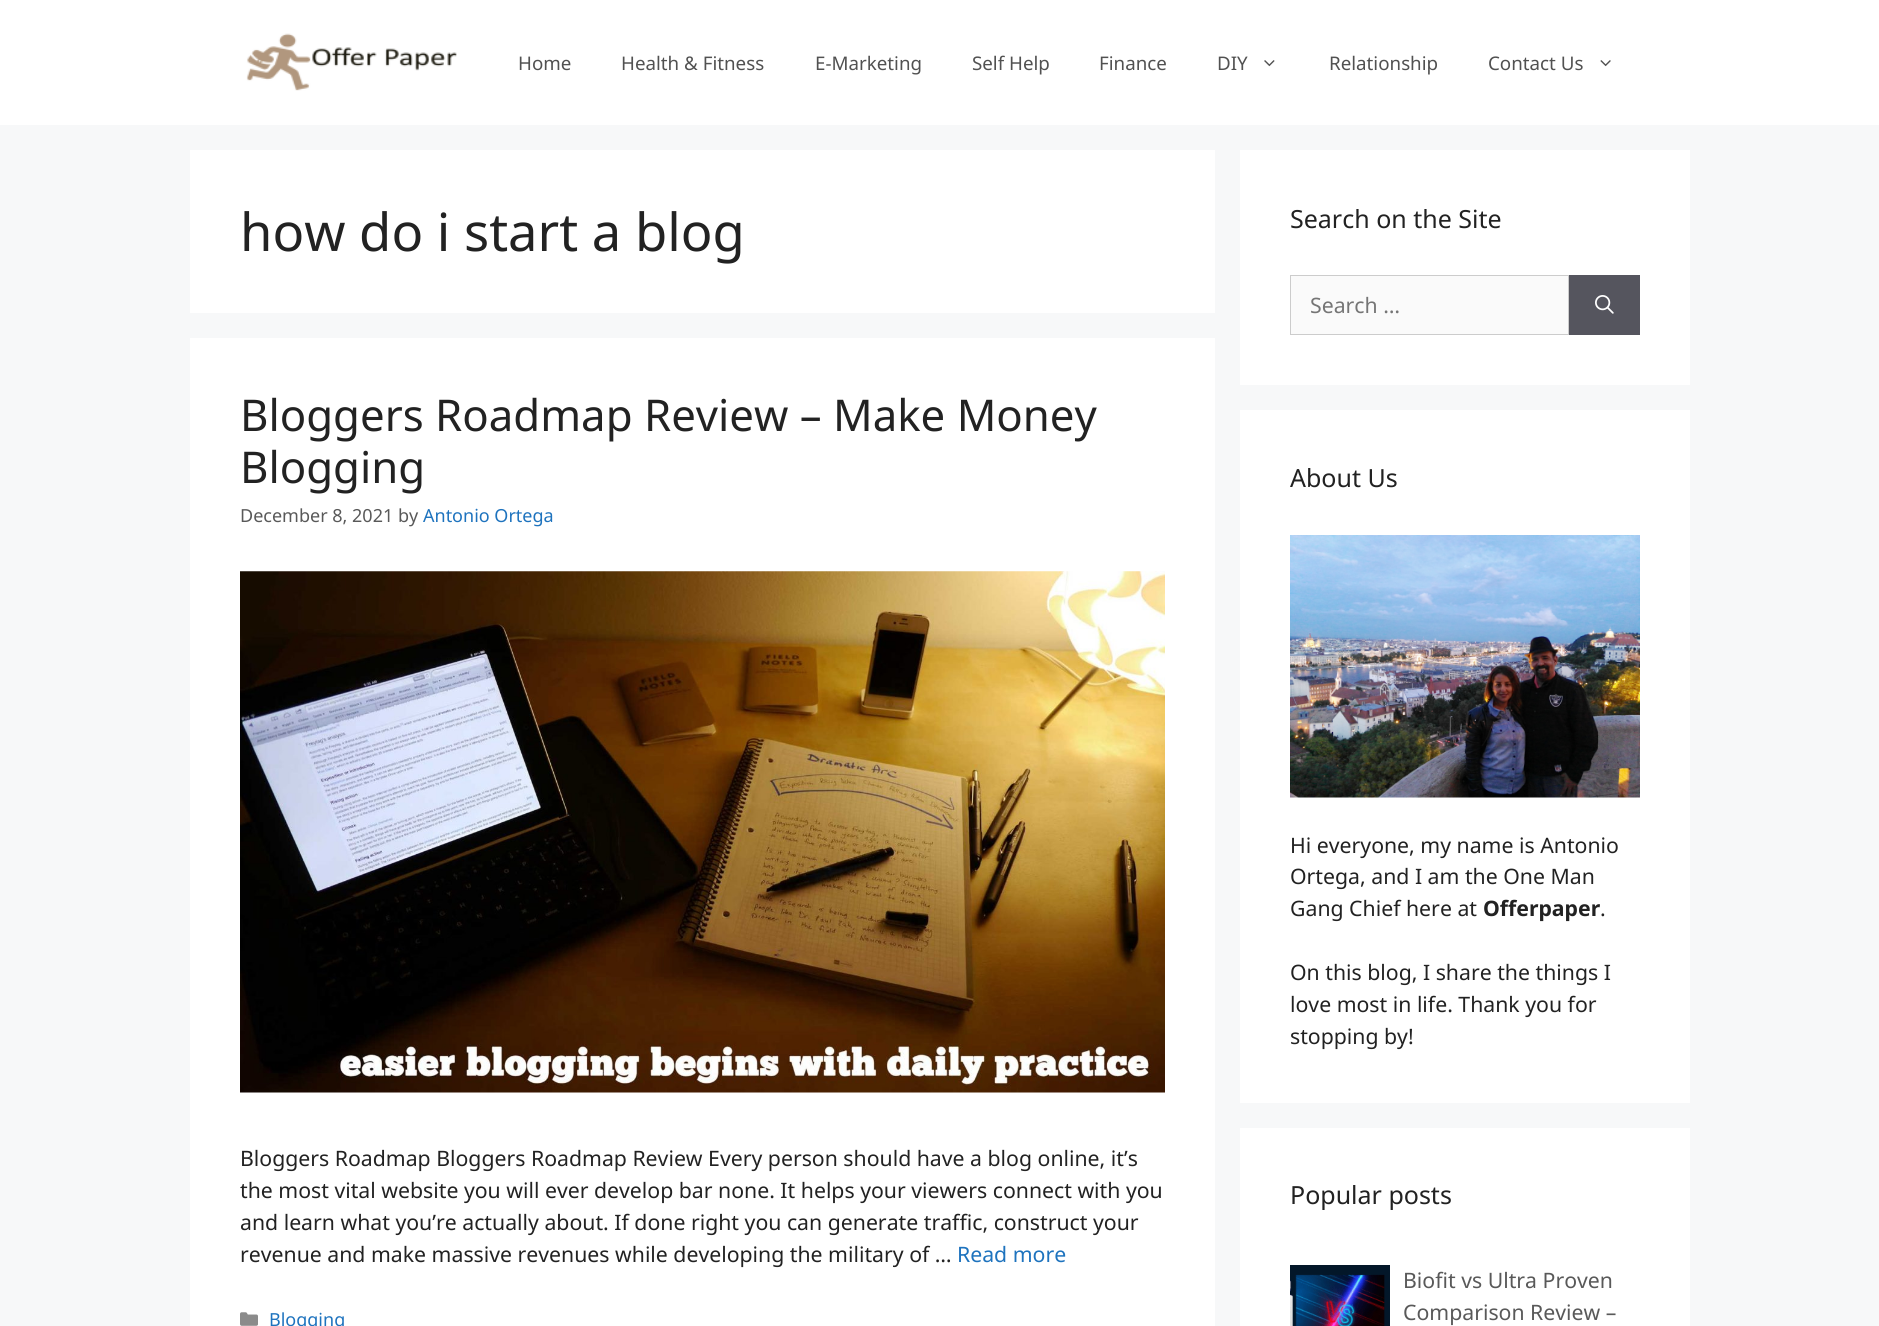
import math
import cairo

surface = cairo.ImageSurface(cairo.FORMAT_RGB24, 1879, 1326)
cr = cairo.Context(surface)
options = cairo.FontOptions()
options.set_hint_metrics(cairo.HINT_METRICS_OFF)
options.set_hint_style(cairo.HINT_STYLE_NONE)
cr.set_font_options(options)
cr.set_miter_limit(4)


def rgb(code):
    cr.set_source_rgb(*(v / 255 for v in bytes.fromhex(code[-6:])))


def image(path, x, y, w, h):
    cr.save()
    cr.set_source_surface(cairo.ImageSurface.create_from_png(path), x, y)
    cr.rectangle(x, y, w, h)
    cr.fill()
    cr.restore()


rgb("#f7f8f9")
cr.paint()
rgb("#ffffff")
cr.rectangle(0, 0, 1879, 125)
cr.fill()
image("img/1.png", 246, 33, 211, 58)
image("img/2.png", 1264, 60, 11, 7)
image("img/3.png", 1600, 60, 11, 7)
cr.rectangle(190, 150, 1025, 163)
cr.fill()
cr.rectangle(190, 338, 1025, 988)
cr.fill()
image("img/4.png", 240, 571, 925, 522)
image("img/5.png", 240, 1312, 18, 14)
cr.rectangle(1240, 150, 450, 235)
cr.fill()
rgb("#fafafa")
cr.rectangle(1290.5, 275.5, 278, 59)
cr.fill_preserve()
rgb("#cccccc")
cr.set_line_width(1)
cr.stroke()
rgb("#55555e")
cr.rectangle(1569, 275, 71, 60)
cr.fill()
image("img/6.png", 1595, 295, 19, 19)
rgb("#ffffff")
cr.rectangle(1240, 410, 450, 693)
cr.fill()
image("img/7.png", 1290, 535, 350, 263)
cr.rectangle(1240, 1128, 450, 198)
cr.fill()
image("img/8.png", 1290, 1265, 100, 61)
cr.select_font_face("Noto Sans")
cr.set_font_size(18.75)
rgb("#515151")
for x, y, s in [
    (518, 70, "Home"),
    (621, 70, "Health & Fitness"),
    (815, 70, "E-Marketing"),
    (972, 70, "Self Help"),
    (1099, 70, "Finance"),
    (1217, 70, "DIY"),
    (1329, 70, "Relationship"),
    (1488, 70, "Contact Us"),
]:
    cr.move_to(x, y)
    cr.show_text(s)
cr.set_font_size(52.5)
rgb("#222222")
cr.move_to(240, 251)
cr.show_text("how do i start a blog")
cr.set_font_size(43.75)
cr.move_to(240, 431)
cr.show_text("Bloggers Roadmap Review – Make Money")
cr.move_to(240, 483)
cr.show_text("Blogging")
cr.set_font_size(18)
rgb("#595959")
cr.move_to(240, 522)
cr.show_text("December 8, 2021 by")
rgb("#1e73be")
cr.move_to(423, 522)
cr.show_text("Antonio Ortega")
cr.set_font_size(21.25)
rgb("#222222")
for x, y, s in [
    (240, 1166, "Bloggers Roadmap Bloggers Roadmap Review Every person should have a blog online, it’s"),
    (240, 1198, "the most vital website you will ever develop bar none. It helps your viewers connect with you"),
    (240, 1230, "and learn what you’re actually about. If done right you can generate traffic, construct your"),
    (240, 1262, "revenue and make massive revenues while developing the military of …"),
]:
    cr.move_to(x, y)
    cr.show_text(s)
rgb("#1e73be")
cr.move_to(957, 1262)
cr.show_text("Read more")
cr.set_font_size(18)
cr.move_to(269, 1326)
cr.show_text("Blogging")
cr.set_font_size(25)
rgb("#222222")
cr.move_to(1290, 228)
cr.show_text("Search on the Site")
cr.set_font_size(21.25)
rgb("#757575")
cr.move_to(1310, 313)
cr.show_text("Search …")
cr.set_font_size(25)
rgb("#222222")
cr.move_to(1290, 487)
cr.show_text("About Us")
cr.set_font_size(21.25)
for x, y, s in [
    (1290, 853, "Hi everyone, my name is Antonio"),
    (1290, 884, "Ortega, and I am the One Man"),
    (1290, 916, "Gang Chief here at"),
]:
    cr.move_to(x, y)
    cr.show_text(s)
cr.select_font_face("Noto Sans", cairo.FONT_SLANT_NORMAL, cairo.FONT_WEIGHT_BOLD)
cr.move_to(1483, 916)
cr.show_text("Offerpaper")
cr.select_font_face("Noto Sans")
for x, y, s in [
    (1600, 916, "."),
    (1290, 980, "On this blog, I share the things I"),
    (1290, 1012, "love most in life. Thank you for"),
    (1290, 1044, "stopping by!"),
]:
    cr.move_to(x, y)
    cr.show_text(s)
cr.set_font_size(25)
cr.move_to(1290, 1204)
cr.show_text("Popular posts")
cr.set_font_size(21.25)
rgb("#595959")
cr.move_to(1403, 1288)
cr.show_text("Biofit vs Ultra Proven")
cr.move_to(1403, 1320)
cr.show_text("Comparison Review –")
surface.write_to_png("page.png")
